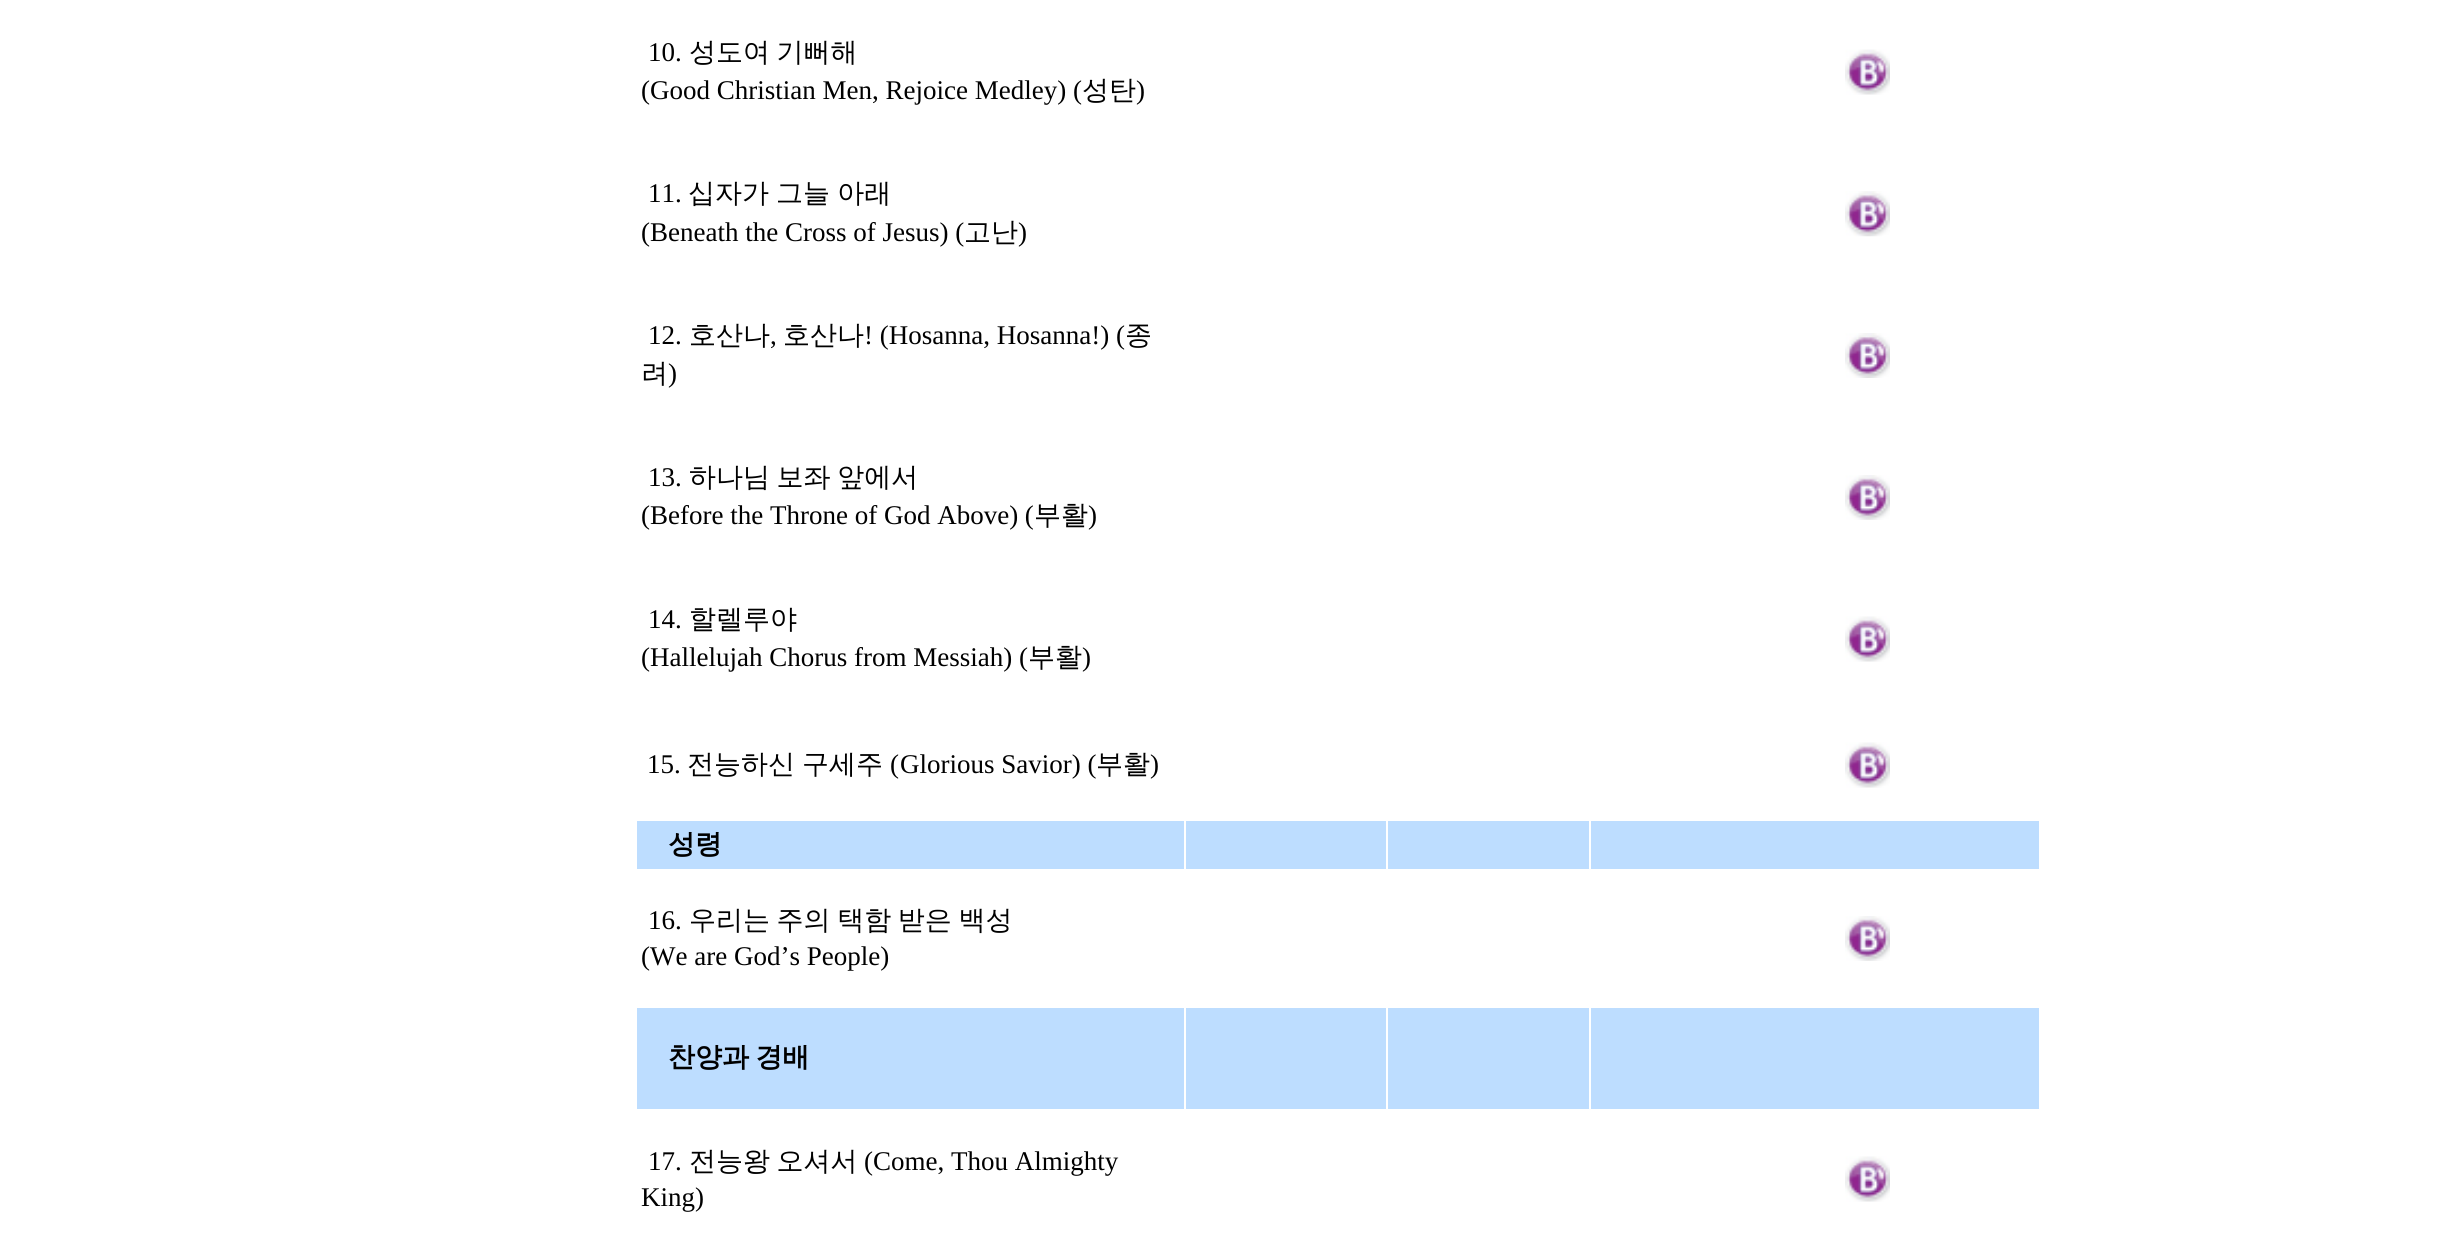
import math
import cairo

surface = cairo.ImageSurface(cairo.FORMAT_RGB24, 2437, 1245)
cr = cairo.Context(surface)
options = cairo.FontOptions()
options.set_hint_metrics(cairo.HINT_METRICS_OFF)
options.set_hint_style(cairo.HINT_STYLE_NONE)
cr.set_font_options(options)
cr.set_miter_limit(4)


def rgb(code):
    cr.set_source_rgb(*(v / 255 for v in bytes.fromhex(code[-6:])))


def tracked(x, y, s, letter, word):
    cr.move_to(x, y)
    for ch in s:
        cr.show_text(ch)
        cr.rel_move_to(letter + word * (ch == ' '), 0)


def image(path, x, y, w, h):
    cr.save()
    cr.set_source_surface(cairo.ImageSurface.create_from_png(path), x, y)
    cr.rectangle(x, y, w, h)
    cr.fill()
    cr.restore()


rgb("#ffffff")
cr.paint()
image("img/1.png", 1845, 49, 45, 46)
image("img/2.png", 1845, 191, 45, 46)
image("img/3.png", 1845, 333, 45, 45)
image("img/4.png", 1845, 475, 45, 45)
image("img/1.png", 1845, 616, 45, 46)
image("img/1.png", 1845, 742, 45, 46)
for x, y, w, h, color in [
    (637, 821, 547, 48, "#bdddff"),
    (1186, 821, 200, 48, "#bdddff"),
    (1388, 821, 201, 48, "#bdddff"),
    (1591, 821, 448, 48, "#bdddff"),
]:
    rgb(color)
    cr.rectangle(x, y, w, h)
    cr.fill()
image("img/5.png", 1845, 916, 45, 45)
for x, y, w, h, color in [
    (637, 1008, 547, 101, "#bdddff"),
    (1186, 1008, 200, 101, "#bdddff"),
    (1388, 1008, 201, 101, "#bdddff"),
    (1591, 1008, 448, 101, "#bdddff"),
]:
    rgb(color)
    cr.rectangle(x, y, w, h)
    cr.fill()
image("img/1.png", 1845, 1156, 45, 46)
cr.select_font_face("Liberation Serif")
cr.set_font_size(27)
rgb("#000000")
cr.move_to(648, 61)
cr.show_text("10.")
cr.select_font_face("WenQuanYi Zen Hei Medium")
tracked(689, 61, "성도여 기뻐해", 0, -1.5)
cr.select_font_face("Liberation Serif")
cr.move_to(641, 99)
cr.show_text("(Good Christian Men, Rejoice Medley) (")
cr.select_font_face("WenQuanYi Zen Hei Medium")
cr.move_to(1082, 99)
cr.show_text("성탄")
cr.select_font_face("Liberation Serif")
cr.move_to(1136, 99)
cr.show_text(")")
cr.move_to(648, 202)
cr.show_text("11.")
cr.select_font_face("WenQuanYi Zen Hei Medium")
tracked(688, 202, "십자가 그늘 아래", 0, -1)
cr.select_font_face("Liberation Serif")
cr.move_to(641, 241)
cr.show_text("(Beneath the Cross of Jesus) (")
cr.select_font_face("WenQuanYi Zen Hei Medium")
cr.move_to(964, 241)
cr.show_text("고난")
cr.select_font_face("Liberation Serif")
cr.move_to(1018, 241)
cr.show_text(")")
cr.move_to(648, 344)
cr.show_text("12.")
cr.select_font_face("WenQuanYi Zen Hei Medium")
cr.move_to(689, 344)
cr.show_text("호산나")
cr.select_font_face("Liberation Serif")
cr.move_to(770, 344)
cr.show_text(",")
cr.select_font_face("WenQuanYi Zen Hei Medium")
cr.move_to(783, 344)
cr.show_text("호산나")
cr.select_font_face("Liberation Serif")
cr.move_to(864, 344)
cr.show_text("! (Hosanna, Hosanna!) (")
cr.select_font_face("WenQuanYi Zen Hei Medium")
cr.move_to(1125, 344)
cr.show_text("종")
cr.move_to(641, 382)
cr.show_text("려")
cr.select_font_face("Liberation Serif")
cr.move_to(668, 382)
cr.show_text(")")
cr.move_to(648, 486)
cr.show_text("13.")
cr.select_font_face("WenQuanYi Zen Hei Medium")
tracked(689, 486, "하나님 보좌 앞에서", 0, -1.5)
cr.select_font_face("Liberation Serif")
cr.move_to(641, 524)
cr.show_text("(Before the Throne of God Above) (")
cr.select_font_face("WenQuanYi Zen Hei Medium")
cr.move_to(1034, 524)
cr.show_text("부활")
cr.select_font_face("Liberation Serif")
cr.move_to(1088, 524)
cr.show_text(")")
cr.move_to(648, 628)
cr.show_text("14.")
cr.select_font_face("WenQuanYi Zen Hei Medium")
cr.move_to(689, 628)
cr.show_text("할렐루야")
cr.select_font_face("Liberation Serif")
cr.move_to(641, 666)
cr.show_text("(Hallelujah Chorus from Messiah) (")
cr.select_font_face("WenQuanYi Zen Hei Medium")
cr.move_to(1028, 666)
cr.show_text("부활")
cr.select_font_face("Liberation Serif")
cr.move_to(1082, 666)
cr.show_text(")")
cr.move_to(647, 773)
cr.show_text("15.")
cr.select_font_face("WenQuanYi Zen Hei Medium")
tracked(687, 773, "전능하신 구세주", 0, -1)
cr.select_font_face("Liberation Serif")
cr.move_to(890, 773)
cr.show_text("(")
cr.move_to(900, 773)
cr.show_text("Glorious Savior) (")
cr.select_font_face("WenQuanYi Zen Hei Medium")
cr.move_to(1096, 773)
cr.show_text("부활")
cr.select_font_face("Liberation Serif")
cr.move_to(1150, 773)
cr.show_text(")")
cr.select_font_face("WenQuanYi Zen Hei", cairo.FONT_SLANT_NORMAL, cairo.FONT_WEIGHT_BOLD)
cr.move_to(668, 853)
cr.show_text("성령")
cr.select_font_face("Liberation Serif")
cr.move_to(648, 929)
cr.show_text("16.")
cr.select_font_face("WenQuanYi Zen Hei Medium")
tracked(689, 929, "우리는 주의 택함 받은 백성", 0, -1.5)
cr.select_font_face("Liberation Serif")
cr.move_to(641, 965)
cr.show_text("(We are God’s People)")
cr.select_font_face("WenQuanYi Zen Hei", cairo.FONT_SLANT_NORMAL, cairo.FONT_WEIGHT_BOLD)
tracked(668, 1066, "찬양과 경배", 0, -1.5)
cr.select_font_face("Liberation Serif")
cr.move_to(648, 1170)
cr.show_text("17.")
cr.select_font_face("WenQuanYi Zen Hei Medium")
tracked(689, 1170, "전능왕 오셔서", 0, -1.5)
cr.select_font_face("Liberation Serif")
cr.move_to(864, 1170)
cr.show_text("(Come, Thou Almighty")
cr.move_to(641, 1206)
cr.show_text("King)")
surface.write_to_png("page.png")
